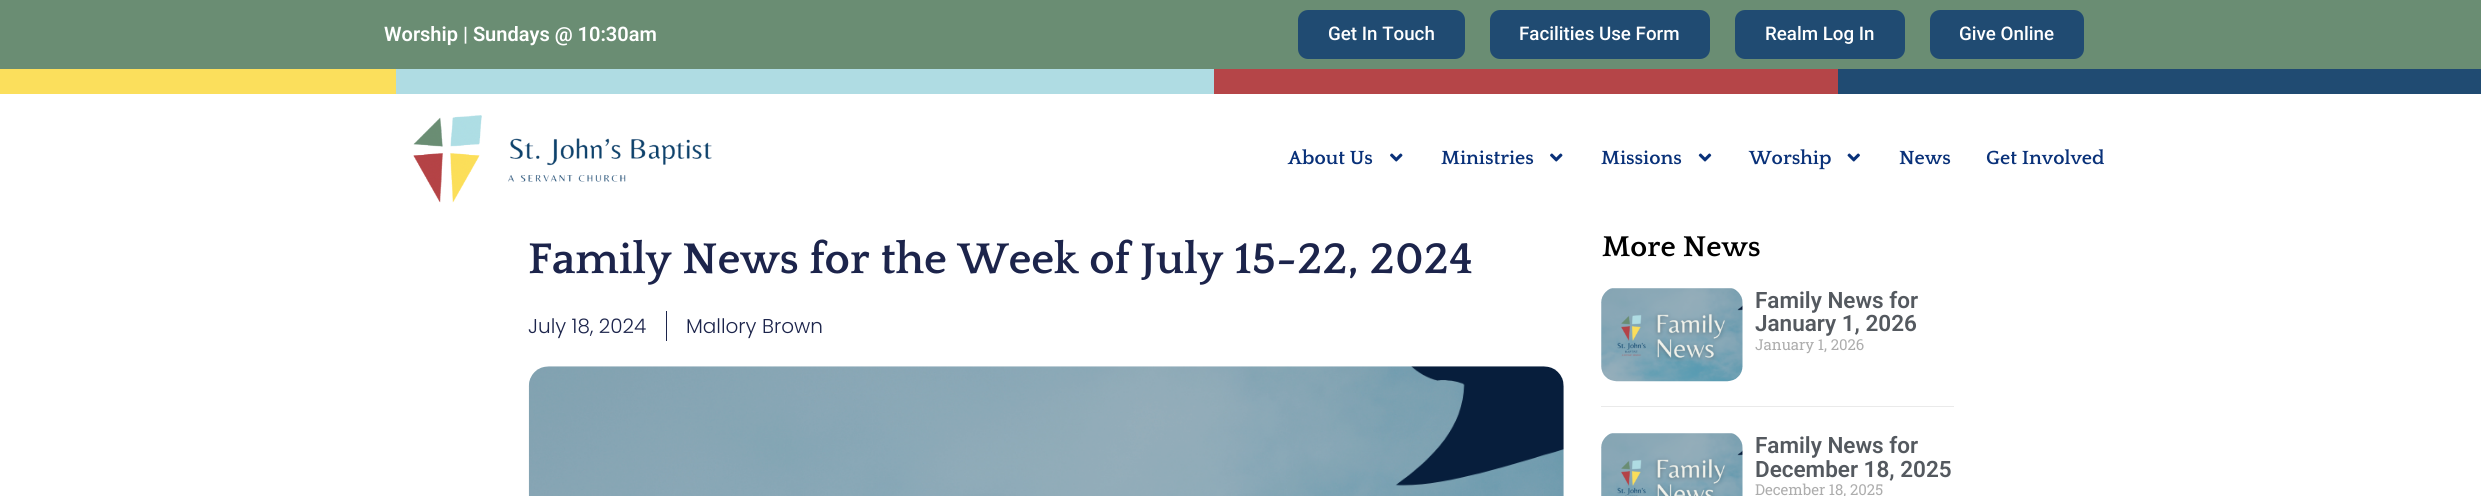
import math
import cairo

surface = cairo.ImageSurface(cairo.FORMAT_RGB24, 2481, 496)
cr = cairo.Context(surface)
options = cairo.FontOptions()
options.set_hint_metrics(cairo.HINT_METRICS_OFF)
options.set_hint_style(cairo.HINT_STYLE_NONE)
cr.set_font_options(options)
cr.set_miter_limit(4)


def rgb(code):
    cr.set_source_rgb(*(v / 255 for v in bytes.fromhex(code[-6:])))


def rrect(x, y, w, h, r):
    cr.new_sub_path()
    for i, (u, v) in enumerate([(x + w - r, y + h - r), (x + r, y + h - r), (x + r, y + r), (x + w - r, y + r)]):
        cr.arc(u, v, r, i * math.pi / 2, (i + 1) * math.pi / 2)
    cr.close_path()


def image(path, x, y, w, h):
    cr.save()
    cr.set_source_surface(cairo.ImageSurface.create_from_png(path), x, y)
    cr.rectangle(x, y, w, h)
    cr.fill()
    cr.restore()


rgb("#ffffff")
cr.paint()
rgb("#6a8d73")
cr.rectangle(0, 0, 2481, 69)
cr.fill()
rgb("#204b72")
rrect(1298, 10, 167, 49, 10)
cr.fill()
rrect(1490, 10, 220, 49, 10)
cr.fill()
rrect(1735, 10, 170, 49, 10)
cr.fill()
rrect(1930, 10, 154, 49, 10)
cr.fill()
for x, y, w, h, color in [
    (0, 69, 396, 25, "#fbdf5c"),
    (396, 69, 818, 25, "#afdce3"),
    (1214, 69, 624, 25, "#b54548"),
    (1838, 69, 643, 25, "#204b72"),
]:
    rgb(color)
    cr.rectangle(x, y, w, h)
    cr.fill()
image("img/1.png", 413, 115, 299, 88)
image("img/2.png", 1390, 153, 13, 9)
image("img/2.png", 1550, 153, 13, 9)
image("img/3.png", 1698, 153, 14, 9)
image("img/4.png", 1847, 153, 13, 9)
rgb("#1c244b")
cr.rectangle(666, 311, 1, 30)
cr.fill()
image("img/5.png", 528, 366, 1036, 130)
rgb("#eaeaea")
cr.rectangle(1601, 406, 353, 1)
cr.fill()
image("img/6.png", 1601, 288, 142, 94)
image("img/7.png", 1601, 433, 142, 63)
cr.select_font_face("Roboto SemiBold")
cr.set_font_size(20)
rgb("#ffffff")
cr.move_to(384, 41)
cr.show_text("Worship | Sundays @ 10:30am")
cr.select_font_face("Roboto Medium")
cr.set_font_size(18.75)
for x, y, s in [
    (1328, 40, "Get In Touch"),
    (1519, 40, "Facilities Use Form"),
    (1765, 40, "Realm Log In"),
    (1959, 40, "Give Online"),
]:
    cr.move_to(x, y)
    cr.show_text(s)
cr.select_font_face("Quattrocento", cairo.FONT_SLANT_NORMAL, cairo.FONT_WEIGHT_BOLD)
cr.set_font_size(20)
rgb("#093179")
for x, y, s in [
    (1288, 164, "About Us"),
    (1441, 164, "Ministries"),
    (1601, 164, "Missions"),
    (1749, 164, "Worship"),
    (1899, 164, "News"),
    (1986, 164, "Get Involved"),
]:
    cr.move_to(x, y)
    cr.show_text(s)
cr.set_font_size(45)
rgb("#1c244b")
cr.move_to(528, 273)
cr.show_text("Family News for the Week of July 15-22, 2024")
cr.select_font_face("Poppins Light")
cr.set_font_size(20)
cr.move_to(528, 333)
cr.show_text("July 18, 2024")
cr.move_to(686, 333)
cr.show_text("Mallory Brown")
cr.select_font_face("Quattrocento", cairo.FONT_SLANT_NORMAL, cairo.FONT_WEIGHT_BOLD)
cr.set_font_size(30)
rgb("#000000")
cr.move_to(1602, 256)
cr.show_text("More News")
cr.select_font_face("Roboto SemiBold")
cr.set_font_size(22.5)
rgb("#54595f")
cr.move_to(1755, 308)
cr.show_text("Family News for")
cr.move_to(1755, 331)
cr.show_text("January 1, 2026")
cr.select_font_face("Roboto Slab")
cr.set_font_size(15)
rgb("#adadad")
cr.move_to(1755, 350)
cr.show_text("January 1, 2026")
cr.select_font_face("Roboto SemiBold")
cr.set_font_size(22.5)
rgb("#54595f")
cr.move_to(1755, 453)
cr.show_text("Family News for")
cr.move_to(1755, 477)
cr.show_text("December 18, 2025")
cr.select_font_face("Roboto Slab")
cr.set_font_size(15)
rgb("#adadad")
cr.move_to(1755, 495)
cr.show_text("December 18, 2025")
surface.write_to_png("page.png")
